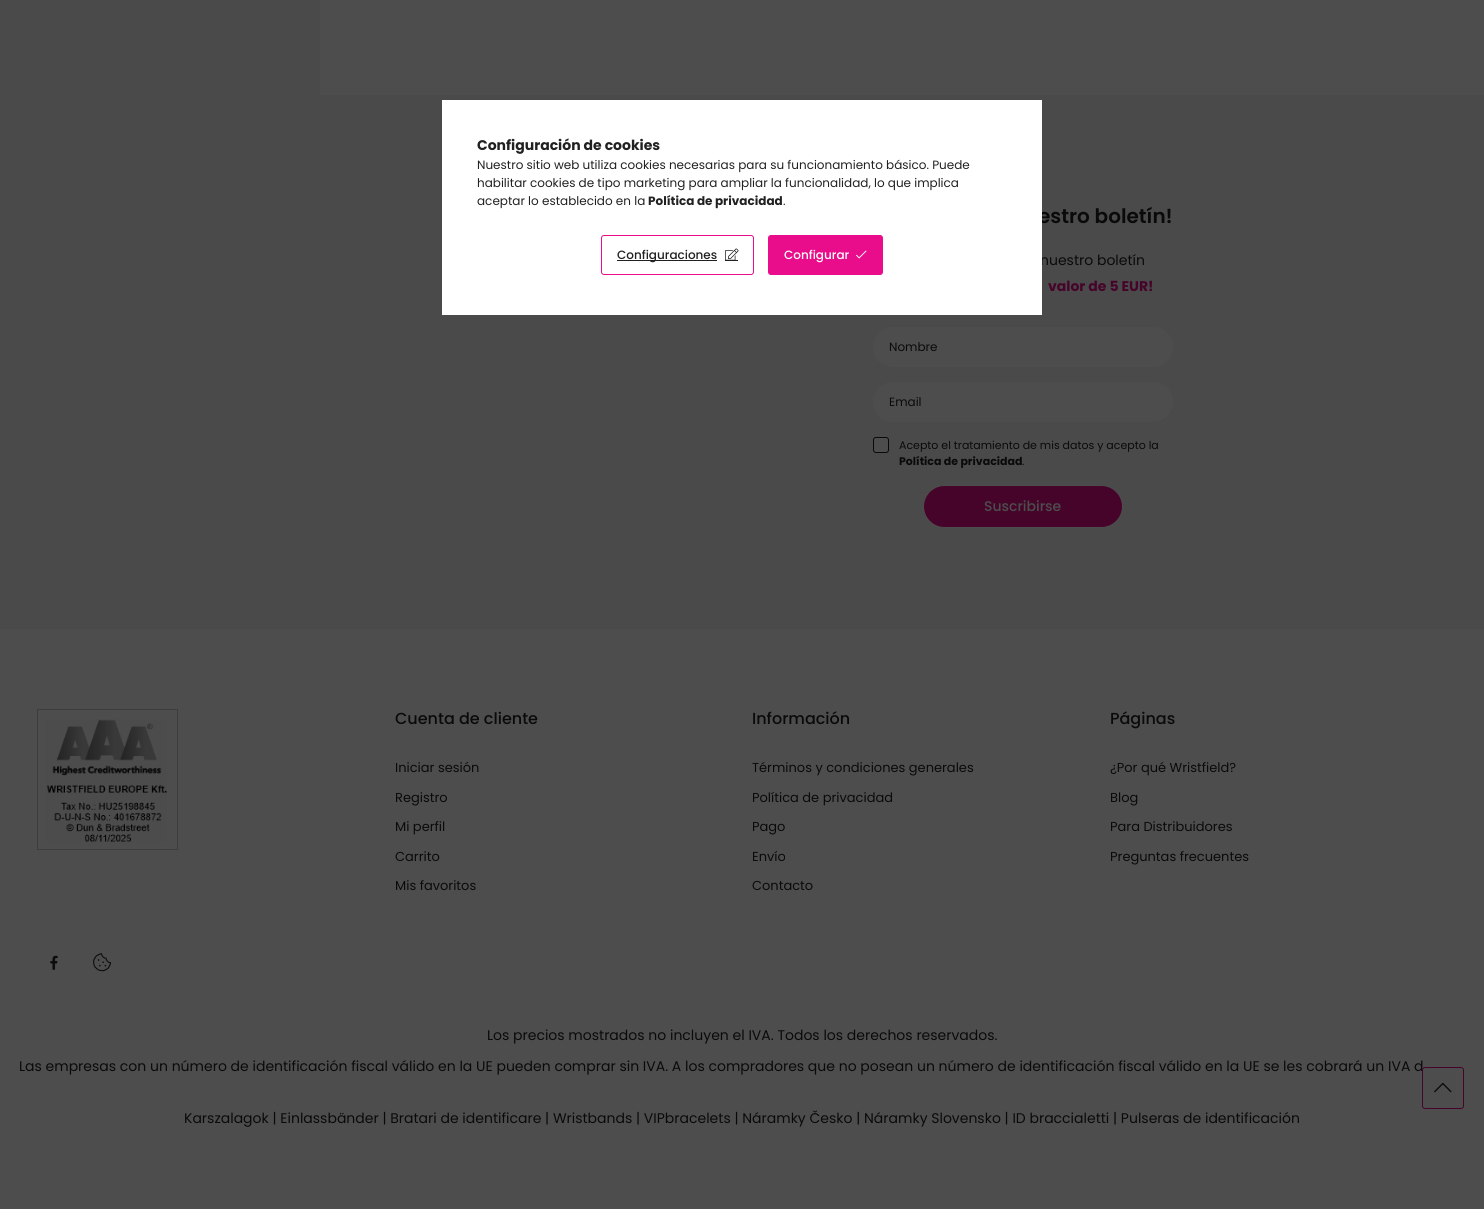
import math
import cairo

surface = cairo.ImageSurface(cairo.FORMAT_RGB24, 1484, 1209)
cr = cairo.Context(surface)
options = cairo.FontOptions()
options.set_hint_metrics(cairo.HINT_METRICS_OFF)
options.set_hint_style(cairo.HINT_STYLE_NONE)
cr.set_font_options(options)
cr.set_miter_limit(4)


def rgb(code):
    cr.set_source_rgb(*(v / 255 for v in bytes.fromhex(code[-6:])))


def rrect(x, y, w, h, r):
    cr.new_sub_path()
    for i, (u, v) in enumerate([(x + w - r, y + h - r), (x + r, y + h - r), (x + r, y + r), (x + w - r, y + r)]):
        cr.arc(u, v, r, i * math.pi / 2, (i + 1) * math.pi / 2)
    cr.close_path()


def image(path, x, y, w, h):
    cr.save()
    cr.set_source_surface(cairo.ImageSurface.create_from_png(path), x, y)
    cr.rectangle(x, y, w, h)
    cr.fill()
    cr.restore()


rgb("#4d4d4d")
cr.paint()
rgb("#4a4a4a")
cr.rectangle(0, 0, 320, 95)
cr.fill()
cr.rectangle(0, 95, 1484, 534)
cr.fill()
rgb("#4d4d4d")
rrect(873.5, 327.5, 299, 39, 19.5)
cr.fill_preserve()
cr.set_line_width(1)
cr.stroke()
rrect(873.5, 382.5, 299, 39, 19.5)
cr.fill_preserve()
cr.stroke()
rrect(873.5, 437.5, 15, 15, 2.5)
cr.fill_preserve()
rgb("#0a0a0a")
cr.stroke()
rgb("#46042a")
rrect(923.5, 485.5, 199, 42, 21)
cr.fill_preserve()
rgb("#4d4d4d")
cr.stroke()
cr.rectangle(37.5, 709.5, 140, 140)
rgb("#3d3d3d")
cr.stroke()
image("img/3.png", 46, 719, 121, 123)
image("img/4.png", 50, 955, 8, 15)
image("img/5.png", 93, 953, 18, 19)
cr.select_font_face("Poppins SemiBold")
cr.set_font_size(20)
rgb("#0a0a0a")
cr.move_to(1038, 223)
cr.show_text("estro boletín!")
cr.select_font_face("Poppins")
cr.set_font_size(14)
cr.move_to(1040, 265)
cr.show_text("nuestro boletín")
rgb("#ffffff")
cr.rectangle(442, 100, 600, 215)
cr.fill()
rgb("#ea0d8b")
rrect(768.5, 235.5, 114, 39, 2.5)
cr.fill_preserve()
cr.stroke()
image("img/2.png", 856, 250, 11, 9)
cr.select_font_face("Poppins Medium")
cr.set_font_size(12)
rgb("#ffffff")
cr.move_to(784, 259)
cr.show_text("Configurar")
rrect(601.5, 235.5, 152, 39, 2.5)
rgb("#ea0d8b")
cr.stroke()
image("img/1.png", 725, 248, 14, 12)
rgb("#212121")
cr.rectangle(725, 260, 13, 1)
cr.fill()
cr.rectangle(617, 260, 100, 1)
cr.fill()
cr.move_to(617, 259)
cr.show_text("Configuraciones")
cr.select_font_face("Poppins")
cr.move_to(783, 205)
cr.show_text(".")
cr.select_font_face("Poppins", cairo.FONT_SLANT_NORMAL, cairo.FONT_WEIGHT_BOLD)
cr.move_to(648, 205)
cr.show_text("Política de privacidad")
cr.select_font_face("Poppins")
for x, y, s in [
    (477, 205, "aceptar lo establecido en la"),
    (477, 187, "habilitar cookies de tipo marketing para ampliar la funcionalidad, lo que implica"),
    (477, 169, "Nuestro sitio web utiliza cookies necesarias para su funcionamiento básico. Puede"),
]:
    cr.move_to(x, y)
    cr.show_text(s)
cr.select_font_face("Poppins", cairo.FONT_SLANT_NORMAL, cairo.FONT_WEIGHT_BOLD)
cr.set_font_size(14)
cr.move_to(477, 150)
cr.show_text("Configuración de cookies")
rgb("#46042a")
cr.move_to(1048, 291)
cr.show_text("valor de 5 EUR!")
cr.select_font_face("Poppins")
cr.set_font_size(12)
rgb("#0a0a0a")
cr.move_to(889, 351)
cr.show_text("Nombre")
cr.move_to(889, 406)
cr.show_text("Email")
cr.set_font_size(11)
cr.move_to(899, 449)
cr.show_text("Acepto el tratamiento de mis datos y acepto la")
cr.select_font_face("Poppins", cairo.FONT_SLANT_NORMAL, cairo.FONT_WEIGHT_BOLD)
cr.move_to(899, 465)
cr.show_text("Política de privacidad")
cr.select_font_face("Poppins")
cr.move_to(1022, 465)
cr.show_text(".")
cr.select_font_face("Poppins Medium")
cr.set_font_size(14)
rgb("#4d4d4d")
cr.move_to(984, 511)
cr.show_text("Suscribirse")
cr.set_font_size(16)
rgb("#0a0a0a")
cr.move_to(395, 724)
cr.show_text("Cuenta de cliente")
cr.select_font_face("Poppins")
cr.set_font_size(13)
for x, y, s in [
    (395, 772, "Iniciar sesión"),
    (395, 802, "Registro"),
    (395, 831, "Mi perfil"),
    (395, 861, "Carrito"),
    (395, 890, "Mis favoritos"),
]:
    cr.move_to(x, y)
    cr.show_text(s)
cr.select_font_face("Poppins Medium")
cr.set_font_size(16)
cr.move_to(752, 724)
cr.show_text("Información")
cr.select_font_face("Poppins")
cr.set_font_size(13)
for x, y, s in [
    (752, 772, "Términos y condiciones generales"),
    (752, 802, "Política de privacidad"),
    (752, 831, "Pago"),
    (752, 861, "Envío"),
    (752, 890, "Contacto"),
]:
    cr.move_to(x, y)
    cr.show_text(s)
cr.select_font_face("Poppins Medium")
cr.set_font_size(16)
cr.move_to(1110, 724)
cr.show_text("Páginas")
cr.select_font_face("Poppins")
cr.set_font_size(13)
for x, y, s in [
    (1110, 772, "¿Por qué Wristfield?"),
    (1110, 802, "Blog"),
    (1110, 831, "Para Distribuidores"),
    (1110, 861, "Preguntas frecuentes"),
]:
    cr.move_to(x, y)
    cr.show_text(s)
cr.set_font_size(14)
for x, y, s in [
    (487, 1040, "Los precios mostrados no incluyen el IVA. Todos los derechos reservados."),
    (19, 1071, "Las empresas con un número de identificación fiscal válido en la UE pueden comprar sin IVA. A los compradores que no posean un número de identificación fiscal válido en la UE se les cobrará un IVA d"),
    (184, 1123, "Karszalagok | Einlassbänder | Bratari de identificare | Wristbands | VIPbracelets | Náramky Česko | Náramky Slovensko | ID braccialetti | Pulseras de identificación"),
]:
    cr.move_to(x, y)
    cr.show_text(s)
rgb("#4d4d4d")
rrect(1422.5, 1067.5, 41, 41, 2.5)
cr.fill_preserve()
rgb("#46042a")
cr.stroke()
image("img/6.png", 1434, 1082, 18, 11)
surface.write_to_png("page.png")
